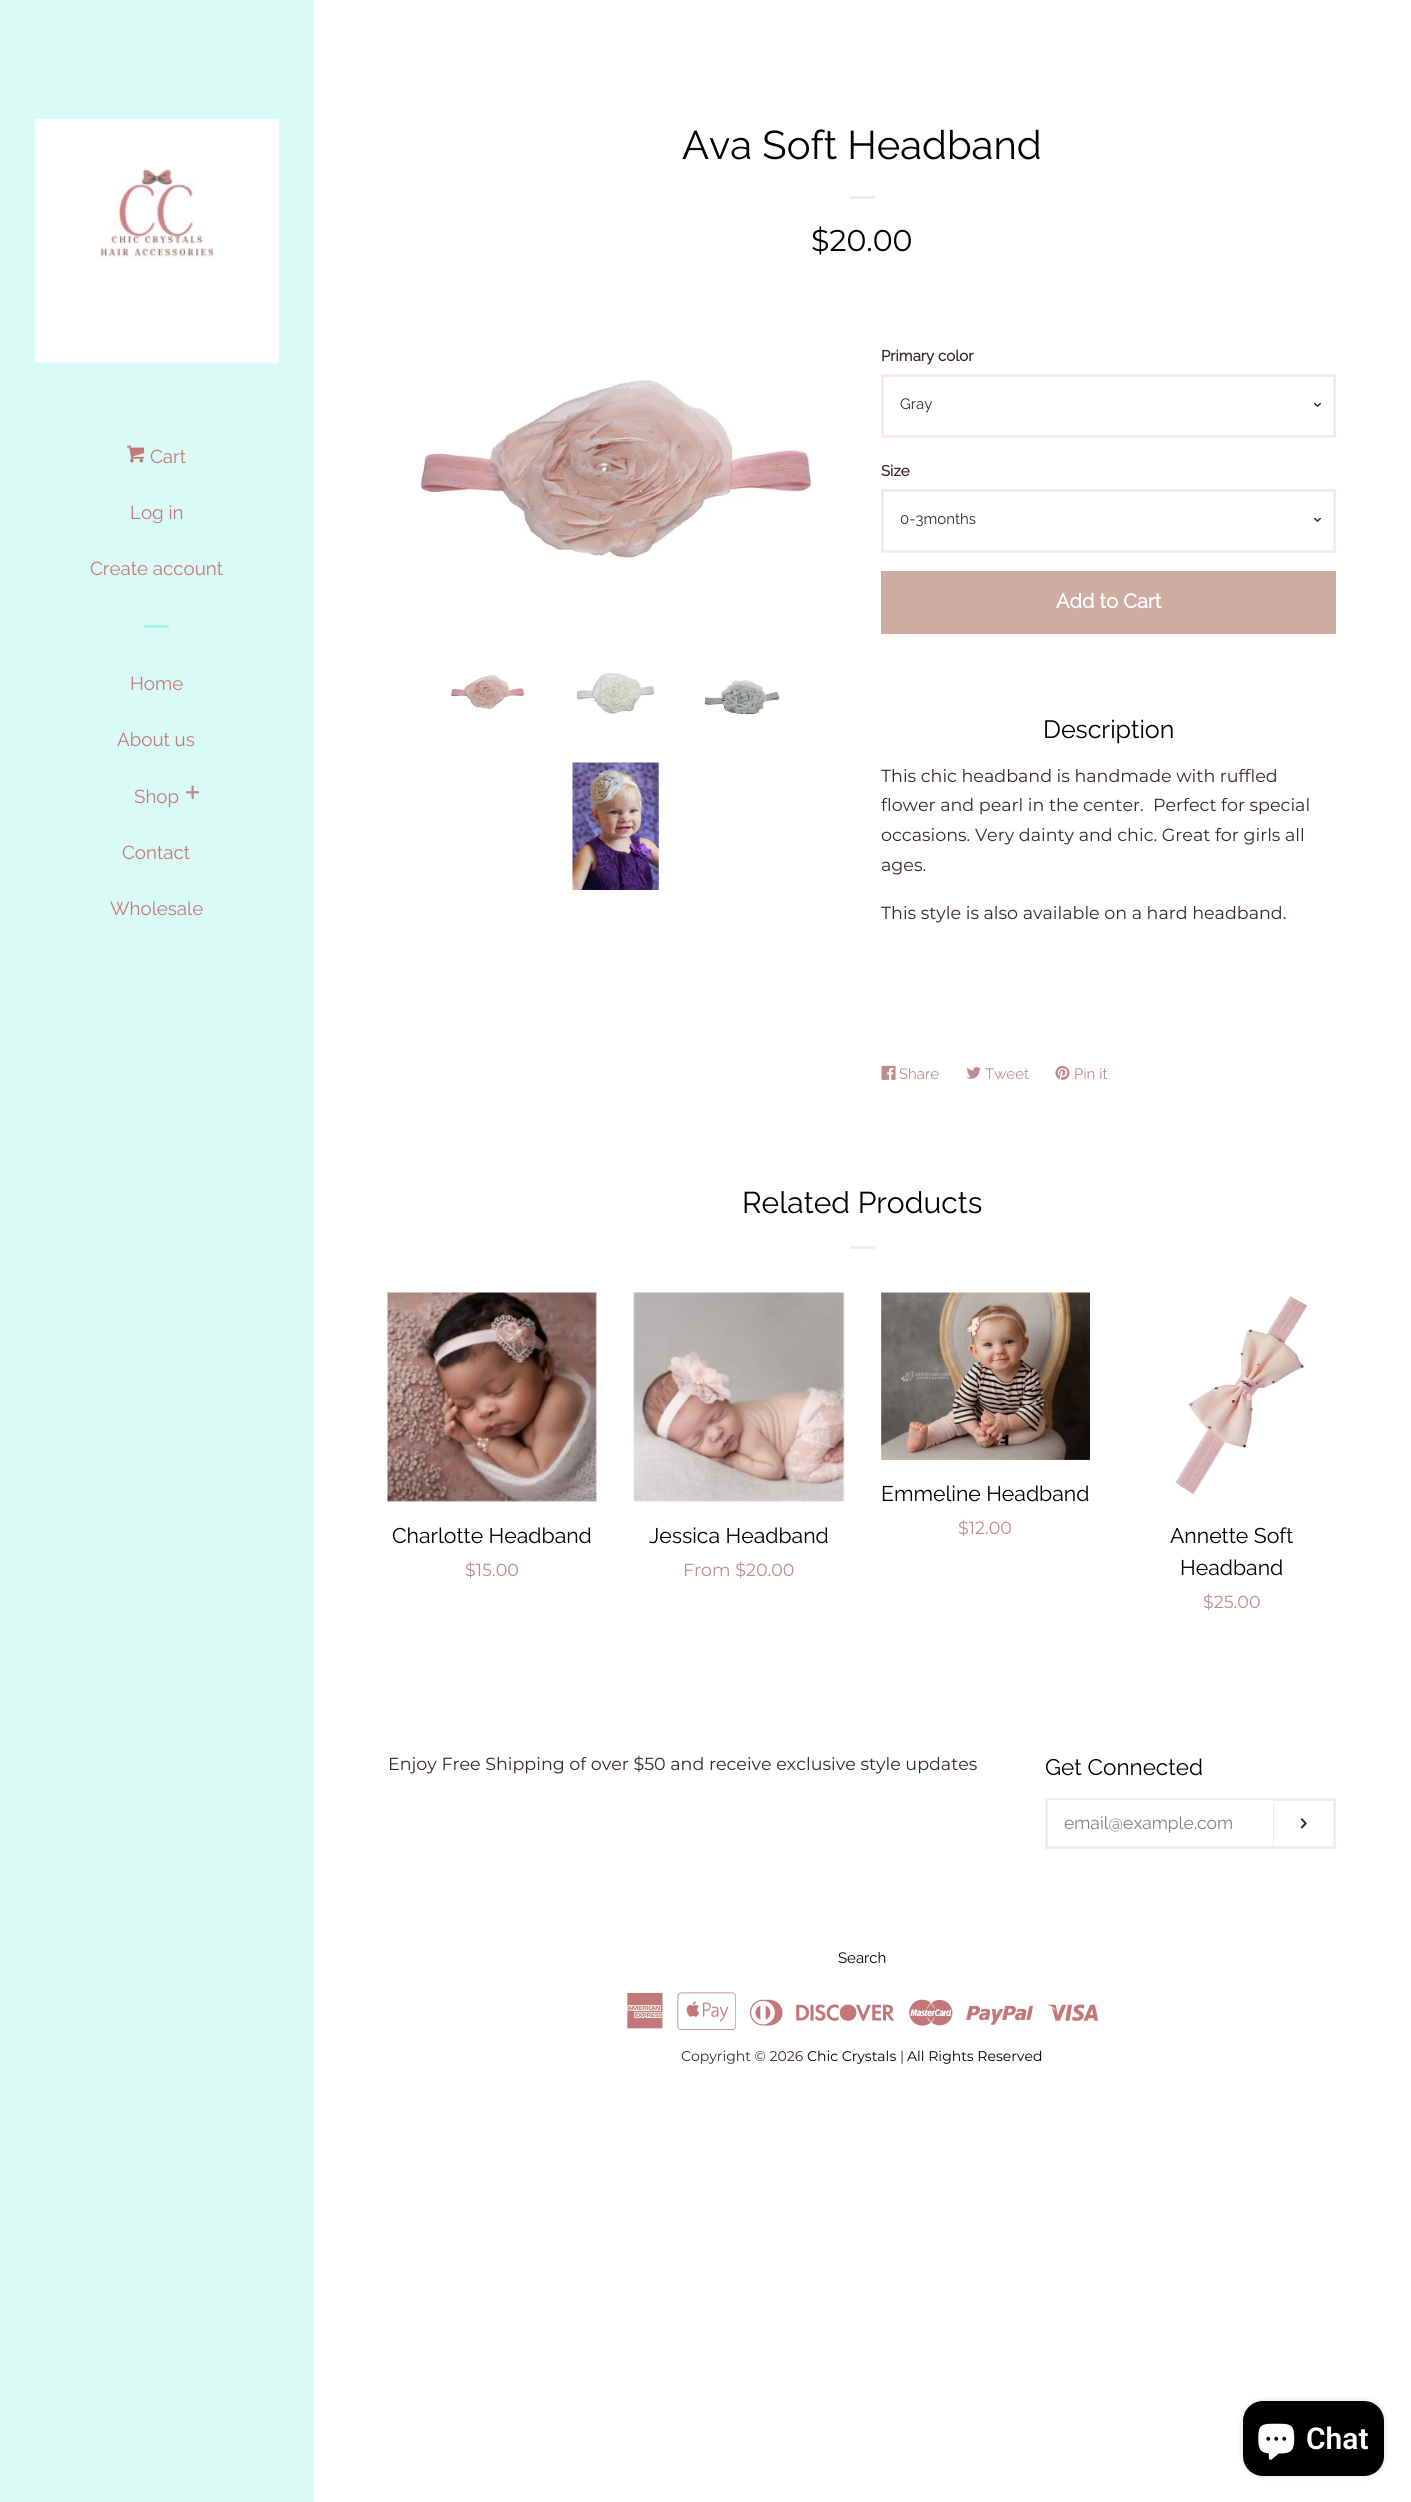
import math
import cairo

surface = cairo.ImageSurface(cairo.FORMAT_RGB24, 1411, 2502)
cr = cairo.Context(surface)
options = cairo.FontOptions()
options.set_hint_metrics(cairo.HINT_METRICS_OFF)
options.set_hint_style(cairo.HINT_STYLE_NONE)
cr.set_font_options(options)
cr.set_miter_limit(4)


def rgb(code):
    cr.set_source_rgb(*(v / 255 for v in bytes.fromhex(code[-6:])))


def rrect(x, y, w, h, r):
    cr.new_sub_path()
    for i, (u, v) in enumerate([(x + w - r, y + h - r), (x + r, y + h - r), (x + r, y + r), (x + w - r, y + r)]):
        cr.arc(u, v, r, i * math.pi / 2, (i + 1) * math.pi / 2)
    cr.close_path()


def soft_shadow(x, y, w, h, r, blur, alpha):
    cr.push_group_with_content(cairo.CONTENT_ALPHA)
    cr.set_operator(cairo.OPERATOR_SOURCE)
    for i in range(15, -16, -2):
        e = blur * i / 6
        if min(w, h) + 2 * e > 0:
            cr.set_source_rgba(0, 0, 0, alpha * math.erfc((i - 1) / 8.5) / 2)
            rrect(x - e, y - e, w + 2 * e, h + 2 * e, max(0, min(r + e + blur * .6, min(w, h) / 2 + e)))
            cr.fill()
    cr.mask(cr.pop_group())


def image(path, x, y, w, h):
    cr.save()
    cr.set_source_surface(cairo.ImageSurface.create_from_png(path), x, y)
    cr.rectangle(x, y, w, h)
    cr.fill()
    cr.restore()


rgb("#dafaf5")
cr.paint()
image("img/1.png", 35, 118, 244, 245)
image("img/2.png", 127, 445, 18, 18)
rgb("#adf4e9")
cr.rectangle(144, 625, 25, 3)
cr.fill()
image("img/3.png", 186, 785, 14, 14)
rgb("#ffffff")
cr.rectangle(313, 0, 1098, 2502)
cr.fill()
rgb("#f5eae7")
cr.rectangle(850, 196, 25, 3)
cr.fill()
image("img/4.png", 420, 379, 391, 181)
image("img/5.png", 450, 674, 76, 35)
image("img/6.png", 577, 673, 78, 41)
image("img/7.png", 704, 680, 76, 35)
image("img/8.png", 572, 762, 87, 128)
image("img/9.png", 1314, 403, 7, 4)
cr.rectangle(882.5, 375.5, 452, 61)
cr.set_line_width(3)
cr.stroke()
image("img/9.png", 1314, 518, 7, 4)
cr.rectangle(882.5, 490.5, 452, 61)
cr.stroke()
rgb("#cfaca1")
cr.rectangle(881, 571, 455, 63)
cr.fill()
image("img/10.png", 881, 1065, 15, 15)
image("img/11.png", 966, 1067, 15, 12)
image("img/12.png", 1055, 1065, 15, 15)
rgb("#f5eae7")
cr.rectangle(850, 1246, 25, 3)
cr.fill()
image("img/13.png", 881, 1292, 209, 168)
image("img/14.png", 387, 1292, 210, 210)
image("img/15.png", 633, 1292, 212, 210)
image("img/16.png", 1174, 1296, 134, 198)
cr.rectangle(1046.5, 1799.5, 288, 48)
cr.stroke()
rgb("#ffffff")
cr.rectangle(1048, 1800, 225, 1)
cr.fill()
rgb("#f5eae7")
cr.rectangle(1273, 1800, 1, 46)
cr.fill()
image("img/17.png", 1300, 1818, 7, 11)
image("img/18.png", 627, 1993, 36, 36)
image("img/19.png", 677, 1992, 59, 38)
image("img/20.png", 750, 1999, 33, 27)
image("img/21.png", 796, 2004, 99, 17)
image("img/22.png", 909, 1999, 44, 27)
image("img/23.png", 966, 2005, 68, 20)
image("img/24.png", 1047, 2004, 52, 17)
rgb("#000000")
soft_shadow(1243, 2401, 141, 75, 20, 3, 0.15)
rgb("#000000")
rrect(1243, 2401, 141, 75, 20)
cr.fill()
image("img/25.png", 1258, 2423, 37, 37)
cr.select_font_face("Raleway Thin")
cr.set_font_size(18.75)
rgb("#c27878")
for x, y, s in [
    (150, 463, "Cart"),
    (130, 519, "Log in"),
    (90, 575, "Create account"),
    (130, 690, "Home"),
    (117, 746, "About us"),
    (134, 803, "Shop"),
    (122, 859, "Contact"),
    (110, 915, "Wholesale"),
]:
    cr.move_to(x, y)
    cr.show_text(s)
cr.set_font_size(40)
rgb("#000000")
cr.move_to(682, 159)
cr.show_text("Ava Soft Headband")
cr.select_font_face("Montserrat")
cr.set_font_size(30)
cr.move_to(811, 251)
cr.show_text("$20.00")
cr.select_font_face("Raleway", cairo.FONT_SLANT_NORMAL, cairo.FONT_WEIGHT_BOLD)
cr.set_font_size(15)
rgb("#3a2727")
cr.move_to(881, 361)
cr.show_text("Primary color")
cr.select_font_face("Raleway Thin")
cr.move_to(900, 409)
cr.show_text("Gray")
cr.select_font_face("Raleway", cairo.FONT_SLANT_NORMAL, cairo.FONT_WEIGHT_BOLD)
cr.move_to(881, 476)
cr.show_text("Size")
cr.select_font_face("Raleway Thin")
cr.move_to(900, 524)
cr.show_text("0-3months")
cr.select_font_face("Raleway", cairo.FONT_SLANT_NORMAL, cairo.FONT_WEIGHT_BOLD)
cr.set_font_size(20)
rgb("#ffffff")
cr.move_to(1056, 608)
cr.show_text("Add to Cart")
cr.select_font_face("Raleway Thin")
cr.set_font_size(25)
rgb("#000000")
cr.move_to(1043, 738)
cr.show_text("Description")
cr.select_font_face("Montserrat")
cr.set_font_size(17.5)
rgb("#3a2727")
for x, y, s in [
    (881, 782, "This chic headband is handmade with ruffled"),
    (881, 811, "flower and pearl in the center.  Perfect for special"),
    (881, 841, "occasions. Very dainty and chic. Great for girls all"),
    (881, 871, "ages."),
    (881, 919, "This style is also available on a hard headband."),
]:
    cr.move_to(x, y)
    cr.show_text(s)
cr.select_font_face("Raleway Thin")
cr.set_font_size(15)
rgb("#bd8b8b")
for x, y, s in [
    (899, 1079, "Share"),
    (985, 1079, "Tweet"),
    (1074, 1079, "Pin it"),
]:
    cr.move_to(x, y)
    cr.show_text(s)
cr.set_font_size(30)
rgb("#000000")
cr.move_to(742, 1213)
cr.show_text("Related Products")
cr.set_font_size(21.25)
cr.move_to(881, 1501)
cr.show_text("Emmeline Headband")
cr.select_font_face("Montserrat")
cr.set_font_size(17.5)
rgb("#bd8b8b")
cr.move_to(958, 1534)
cr.show_text("$12.00")
cr.select_font_face("Raleway Thin")
cr.set_font_size(21.25)
rgb("#000000")
cr.move_to(392, 1543)
cr.show_text("Charlotte Headband")
cr.select_font_face("Montserrat")
cr.set_font_size(17.5)
rgb("#bd8b8b")
cr.move_to(465, 1576)
cr.show_text("$15.00")
cr.select_font_face("Raleway Thin")
cr.set_font_size(21.25)
rgb("#000000")
cr.move_to(649, 1543)
cr.show_text("Jessica Headband")
cr.select_font_face("Montserrat")
cr.set_font_size(17.5)
rgb("#bd8b8b")
cr.move_to(683, 1576)
cr.show_text("From $20.00")
cr.select_font_face("Raleway Thin")
cr.set_font_size(21.25)
rgb("#000000")
cr.move_to(1170, 1543)
cr.show_text("Annette Soft")
cr.move_to(1180, 1575)
cr.show_text("Headband")
cr.select_font_face("Montserrat")
cr.set_font_size(17.5)
rgb("#bd8b8b")
cr.move_to(1203, 1608)
cr.show_text("$25.00")
rgb("#3a2727")
cr.move_to(388, 1770)
cr.show_text("Enjoy Free Shipping of over $50 and receive exclusive style updates")
cr.select_font_face("Raleway Thin")
cr.set_font_size(22.5)
rgb("#000000")
cr.move_to(1045, 1775)
cr.show_text("Get Connected")
cr.set_font_size(17.5)
rgb("#897d7d")
cr.move_to(1064, 1829)
cr.show_text("email@example.com")
cr.set_font_size(15)
rgb("#000000")
cr.move_to(838, 1963)
cr.show_text("Search")
cr.select_font_face("Montserrat")
cr.set_font_size(14)
rgb("#3a2727")
cr.move_to(681, 2061)
cr.show_text("Copyright © 2026")
rgb("#000000")
cr.move_to(807, 2061)
cr.show_text("Chic Crystals")
rgb("#3a2727")
cr.move_to(900, 2061)
cr.show_text("|")
rgb("#000000")
cr.move_to(907, 2061)
cr.show_text("All Rights Reserved")
cr.select_font_face("Roboto SemiBold")
cr.set_font_size(30)
rgb("#ffffff")
cr.move_to(1306, 2449)
cr.show_text("Chat")
surface.write_to_png("page.png")
